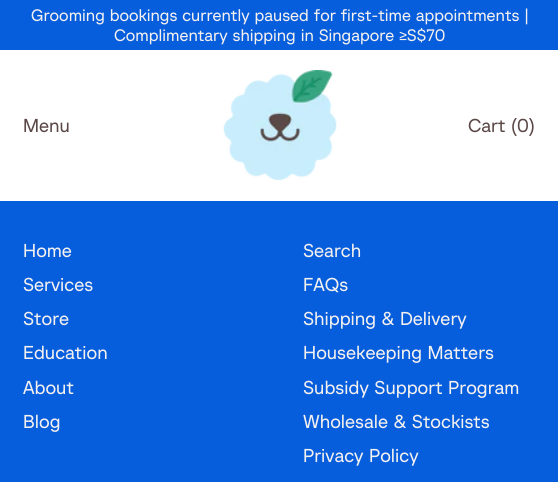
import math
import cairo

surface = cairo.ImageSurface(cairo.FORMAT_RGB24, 558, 482)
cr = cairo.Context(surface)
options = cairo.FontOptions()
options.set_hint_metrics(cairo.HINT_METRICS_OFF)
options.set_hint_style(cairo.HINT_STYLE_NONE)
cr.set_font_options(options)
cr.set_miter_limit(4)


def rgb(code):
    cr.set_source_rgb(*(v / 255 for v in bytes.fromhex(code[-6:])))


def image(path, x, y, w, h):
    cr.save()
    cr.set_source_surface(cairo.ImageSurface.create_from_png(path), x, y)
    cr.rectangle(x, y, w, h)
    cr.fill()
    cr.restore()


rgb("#ffffff")
cr.paint()
rgb("#075edd")
cr.rectangle(0, 0, 558, 50)
cr.fill()
image("img/1.png", 223, 70, 114, 110)
cr.rectangle(0, 201, 558, 281)
cr.fill()
cr.select_font_face("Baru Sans")
cr.set_font_size(16.7)
rgb("#f4f1ef")
cr.move_to(31, 21)
cr.show_text("Grooming bookings currently paused for first-time appointments |")
cr.move_to(114, 41)
cr.show_text("Complimentary shipping in Singapore ≥S$70")
cr.set_font_size(18.75)
rgb("#5b4846")
cr.move_to(23, 132)
cr.show_text("Menu")
cr.move_to(468, 132)
cr.show_text("Cart (0)")
rgb("#f4f1ef")
for x, y, s in [
    (23, 257, "Home"),
    (23, 291, "Services"),
    (23, 325, "Store"),
    (23, 359, "Education"),
    (23, 394, "About"),
    (23, 428, "Blog"),
    (303, 257, "Search"),
    (303, 291, "FAQs"),
    (303, 325, "Shipping & Delivery"),
    (303, 359, "Housekeeping Matters"),
    (303, 394, "Subsidy Support Program"),
    (303, 428, "Wholesale & Stockists"),
    (303, 462, "Privacy Policy"),
]:
    cr.move_to(x, y)
    cr.show_text(s)
surface.write_to_png("page.png")
